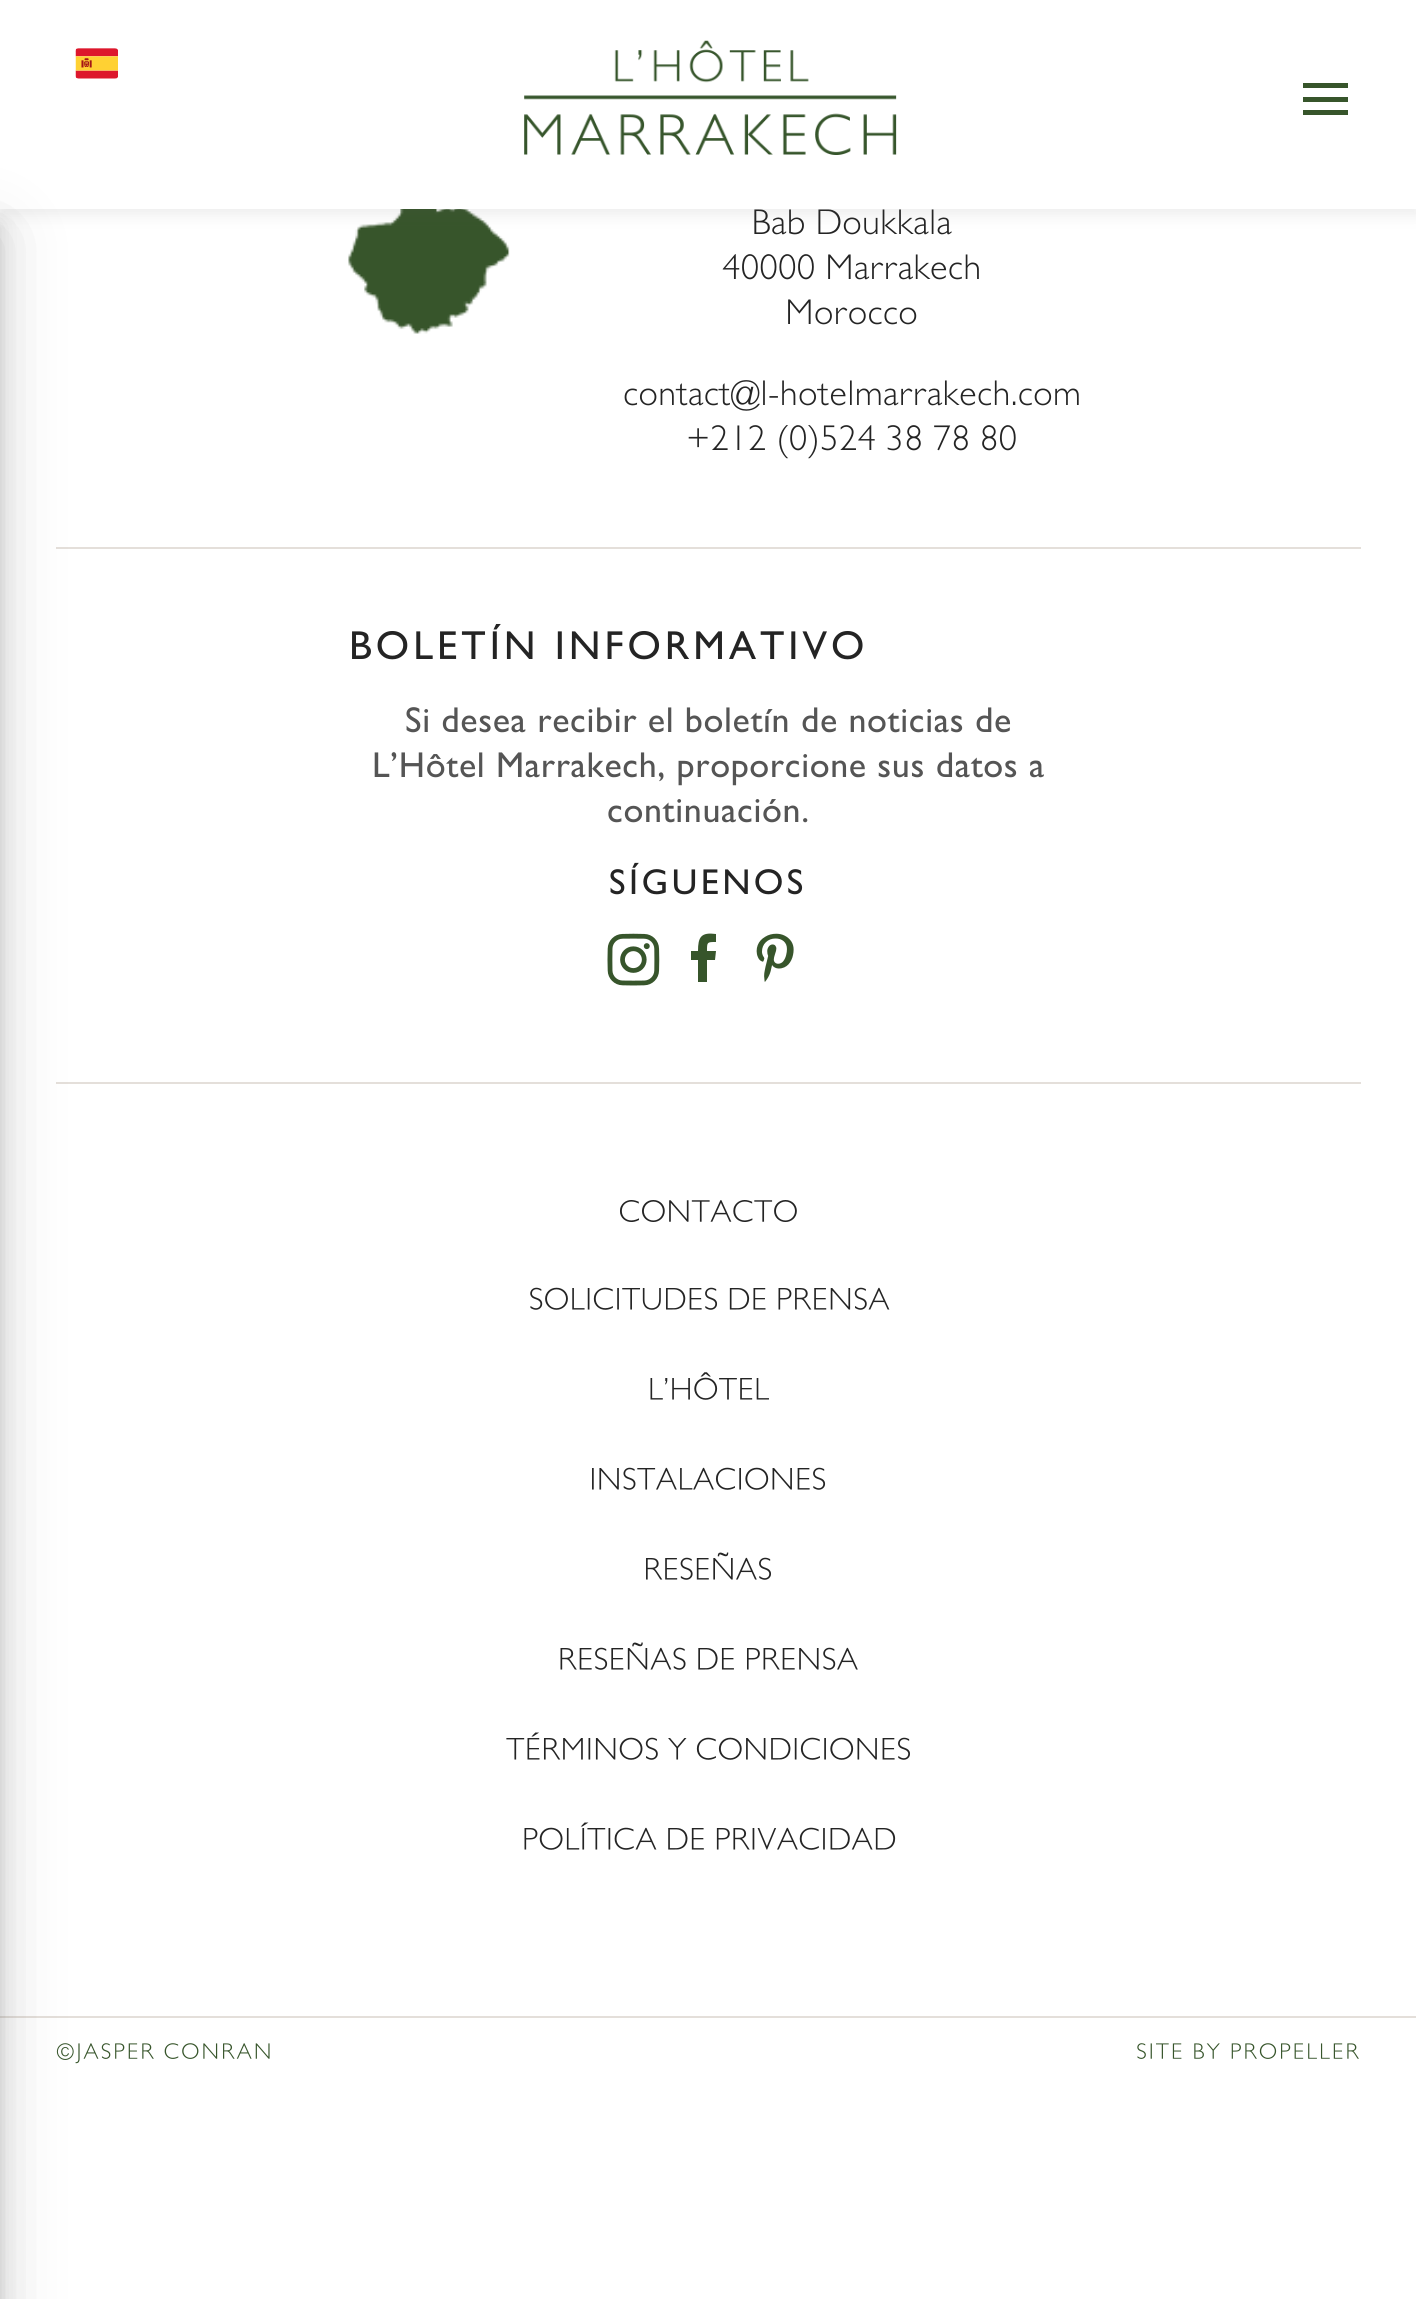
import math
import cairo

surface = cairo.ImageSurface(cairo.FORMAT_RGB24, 1416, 2299)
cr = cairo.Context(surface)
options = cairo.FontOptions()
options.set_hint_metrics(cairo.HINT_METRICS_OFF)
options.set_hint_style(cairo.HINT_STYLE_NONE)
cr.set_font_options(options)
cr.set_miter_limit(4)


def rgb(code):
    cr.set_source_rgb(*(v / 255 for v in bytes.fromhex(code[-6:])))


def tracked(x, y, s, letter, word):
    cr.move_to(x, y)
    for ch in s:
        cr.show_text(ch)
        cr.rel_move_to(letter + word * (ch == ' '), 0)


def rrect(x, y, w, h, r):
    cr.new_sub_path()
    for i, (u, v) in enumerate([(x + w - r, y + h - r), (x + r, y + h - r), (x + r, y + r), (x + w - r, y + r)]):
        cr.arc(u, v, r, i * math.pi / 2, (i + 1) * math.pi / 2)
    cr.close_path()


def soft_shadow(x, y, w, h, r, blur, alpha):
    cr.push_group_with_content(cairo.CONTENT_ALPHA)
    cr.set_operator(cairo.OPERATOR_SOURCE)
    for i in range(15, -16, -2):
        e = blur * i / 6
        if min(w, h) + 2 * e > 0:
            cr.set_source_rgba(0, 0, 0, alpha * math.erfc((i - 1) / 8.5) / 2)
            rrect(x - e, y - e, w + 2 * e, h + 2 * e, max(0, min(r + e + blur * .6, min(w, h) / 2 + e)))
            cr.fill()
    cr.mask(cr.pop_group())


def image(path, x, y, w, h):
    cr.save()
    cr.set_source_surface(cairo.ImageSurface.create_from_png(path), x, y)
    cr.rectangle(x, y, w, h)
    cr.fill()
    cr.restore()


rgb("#ffffff")
cr.paint()
image("img/3.png", 348, 209, 162, 125)
image("img/4.png", 754, 209, 198, 26)
rgb("#555555")
soft_shadow(0, 7, 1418, 209, 0, 7, 0.1)
rgb("#ffffff")
cr.rectangle(0, 0, 1416, 209)
cr.fill()
image("img/1.png", 524, 40, 373, 115)
for x, y, w, h, color in [
    (1303, 83, 45, 5, "#37552b"),
    (1303, 97, 45, 5, "#37552b"),
    (1303, 110, 45, 5, "#37552b"),
]:
    rgb(color)
    cr.rectangle(x, y, w, h)
    cr.fill()
image("img/2.png", 75, 48, 43, 31)
rgb("#e4dfda")
cr.rectangle(0, 2016, 1416, 2)
cr.fill()
rgb("#555555")
soft_shadow(-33, 225, 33, 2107, 0, 11, 0.22)
rgb("#e4dfda")
cr.rectangle(56, 547, 1305, 2)
cr.fill()
cr.rectangle(56, 1082, 1305, 2)
cr.fill()
image("img/19.png", 56, 2043, 214, 21)
rgb("#555555")
soft_shadow(-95, 234, 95, 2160, 0, 31.5, 0.25)
image("img/5.png", 722, 254, 257, 26)
image("img/6.png", 788, 299, 129, 26)
image("img/7.png", 624, 380, 455, 31)
image("img/8.png", 688, 425, 328, 34)
image("img/9.png", 607, 933, 53, 53)
rgb("#37552b")
cr.new_path()
cr.move_to(716, 934)
cr.curve_to(701, 932, 698, 937, 698, 951)
cr.line_to(691, 951)
cr.line_to(691, 960)
cr.line_to(698, 960)
cr.line_to(698, 982)
cr.line_to(707, 982)
cr.line_to(707, 960)
cr.line_to(715, 960)
cr.line_to(716, 951)
cr.line_to(707, 951)
cr.curve_to(707, 942, 707, 942, 716, 942)
cr.close_path()
cr.fill()
image("img/10.png", 756, 933, 38, 49)
image("img/11.png", 620, 1200, 177, 22)
image("img/12.png", 530, 1287, 360, 23)
image("img/13.png", 650, 1372, 119, 28)
image("img/14.png", 592, 1467, 234, 23)
image("img/15.png", 646, 1552, 125, 28)
image("img/16.png", 560, 1642, 298, 28)
image("img/17.png", 506, 1732, 404, 28)
image("img/18.png", 524, 1822, 372, 28)
image("img/20.png", 1137, 2043, 222, 16)
cr.select_font_face("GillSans")
cr.set_font_size(40.5)
rgb("#242424")
tracked(349, 659, "BOLETÍN INFORMATIVO", 4, 0)
cr.set_font_size(36)
rgb("#555555")
for x, y, s in [
    (405, 732, "Si desea recibir el boletín de noticias de"),
    (372, 777, "L’Hôtel Marrakech, proporcione sus datos a"),
    (607, 822, "continuación."),
]:
    tracked(x, y, s, 0.65, 0)
rgb("#242424")
tracked(609, 894, "SÍGUENOS", 3.5, 0)
surface.write_to_png("page.png")
